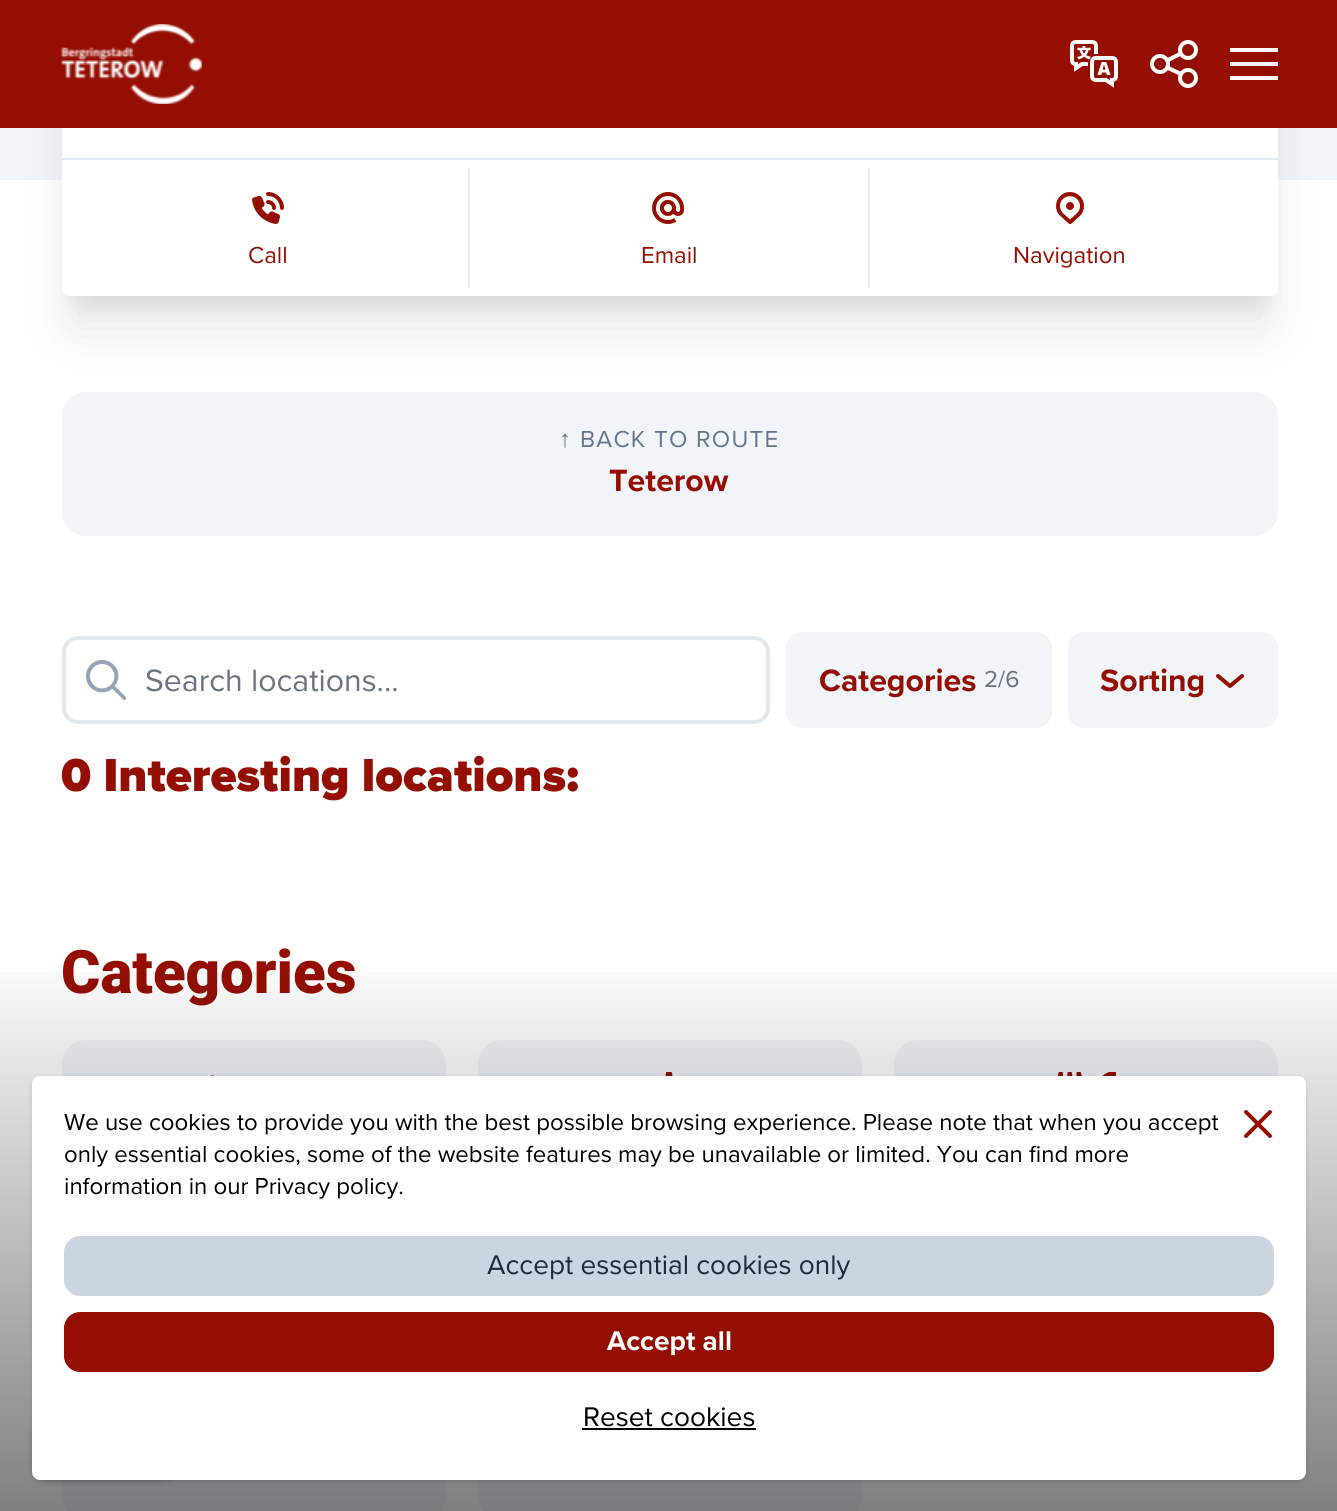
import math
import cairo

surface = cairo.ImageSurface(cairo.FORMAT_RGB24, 1337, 1511)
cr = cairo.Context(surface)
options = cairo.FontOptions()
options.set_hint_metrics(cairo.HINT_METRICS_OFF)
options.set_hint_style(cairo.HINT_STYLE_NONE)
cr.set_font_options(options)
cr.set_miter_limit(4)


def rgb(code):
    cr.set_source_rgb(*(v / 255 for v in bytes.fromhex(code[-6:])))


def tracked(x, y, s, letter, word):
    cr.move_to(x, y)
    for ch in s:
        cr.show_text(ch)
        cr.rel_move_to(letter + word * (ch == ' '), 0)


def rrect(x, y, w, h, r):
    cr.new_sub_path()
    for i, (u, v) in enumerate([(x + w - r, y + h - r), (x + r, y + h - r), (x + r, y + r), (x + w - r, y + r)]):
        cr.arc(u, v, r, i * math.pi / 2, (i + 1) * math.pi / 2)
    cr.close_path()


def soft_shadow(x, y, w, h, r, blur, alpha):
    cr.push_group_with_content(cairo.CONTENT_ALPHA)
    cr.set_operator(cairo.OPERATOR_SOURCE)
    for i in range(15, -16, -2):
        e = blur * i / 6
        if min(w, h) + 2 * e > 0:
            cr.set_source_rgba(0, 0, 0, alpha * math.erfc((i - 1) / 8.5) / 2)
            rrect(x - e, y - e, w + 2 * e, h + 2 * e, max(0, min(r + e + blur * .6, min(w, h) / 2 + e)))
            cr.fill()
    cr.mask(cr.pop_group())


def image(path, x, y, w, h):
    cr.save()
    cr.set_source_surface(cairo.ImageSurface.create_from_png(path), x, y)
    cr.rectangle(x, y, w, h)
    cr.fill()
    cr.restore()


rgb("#ffffff")
cr.paint()
rgb("#f1f5f9")
cr.rectangle(0, 128, 1337, 52)
cr.fill()
rgb("#000000")
soft_shadow(74, 90, 1192, 210, 0, 10, 0.1)
rgb("#f1f5f9")
rrect(62, 392, 1216, 144, 24)
cr.fill()
rgb("#000000")
soft_shadow(72, 112, 1196, 214, 0, 25, 0.1)
rgb("#ffffff")
rrect(62, 62, 1216, 234, 8)
cr.fill()
rgb("#940f02")
cr.rectangle(0, 0, 1337, 128)
cr.fill()
image("img/1.png", 61, 24, 141, 80)
image("img/2.png", 1070, 40, 48, 48)
cr.new_path()
cr.move_to(1167, 60.5)
cr.line_to(1181, 53.5)
cr.move_to(1167, 67.5)
cr.line_to(1181, 74)
rgb("#ffffff")
cr.set_line_width(4)
cr.stroke()
cr.arc(1160, 64, 8, 0, 2 * math.pi)
cr.stroke()
cr.arc(1188, 50, 8, 0, 2 * math.pi)
cr.stroke()
cr.arc(1188, 78, 8, 0, 2 * math.pi)
cr.stroke()
for x, y, w, h, color in [
    (1230, 62, 48, 4, "#ffffff"),
    (1230, 48, 48, 4, "#ffffff"),
    (1230, 76, 48, 4, "#ffffff"),
    (62, 158, 1216, 2, "#e2e8f0"),
]:
    rgb(color)
    cr.rectangle(x, y, w, h)
    cr.fill()
image("img/3.png", 252, 192, 32, 32)
cr.rectangle(468, 168, 2, 120)
cr.fill()
image("img/4.png", 652, 192, 32, 32)
cr.rectangle(868, 168, 2, 120)
cr.fill()
image("img/5.png", 1056, 192, 28, 32)
rrect(64, 638, 704, 84, 14)
cr.stroke()
image("img/6.png", 86, 660, 40, 40)
rgb("#f1f5f9")
rrect(786, 632, 266, 96, 16)
cr.fill()
rrect(1068, 632, 210, 96, 16)
cr.fill()
image("img/7.png", 1216, 674, 28, 14)
rrect(62, 1040, 384, 224, 24)
cr.fill()
image("img/8.png", 210, 1075, 5, 1)
rrect(478, 1040, 384, 224, 24)
cr.fill()
image("img/9.png", 665, 1072, 8, 4)
rrect(894, 1040, 384, 224, 24)
cr.fill()
image("img/10.png", 1057, 1072, 59, 4)
rrect(62, 1296, 384, 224, 24)
cr.fill()
rrect(478, 1296, 384, 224, 24)
cr.fill()
rgb("#000000")
soft_shadow(34, 1420, 142, 60, 14, 2, 0.1)
soft_shadow(32, 1418, 146, 64, 16, 3, 0.1)
cr.select_font_face("Proxima Nova")
cr.set_font_size(24)
rgb("#940f02")
for x, y, s in [
    (248, 263, "Call"),
    (641, 263, "Email"),
    (1013, 263, "Navigation"),
]:
    cr.move_to(x, y)
    cr.show_text(s)
cr.select_font_face("Liberation Sans")
rgb("#64748b")
tracked(559, 447, "↑", 1.25, 0)
cr.select_font_face("Proxima Nova")
tracked(580, 447, "BACK TO ROUTE", 1.25, 0)
cr.select_font_face("Proxima Nova", cairo.FONT_SLANT_NORMAL, cairo.FONT_WEIGHT_BOLD)
cr.set_font_size(32)
rgb("#940f02")
cr.move_to(609, 491)
cr.show_text("Teterow")
cr.select_font_face("Proxima Nova")
rgb("#6b7280")
cr.move_to(145, 691)
cr.show_text("Search locations...")
cr.select_font_face("Proxima Nova", cairo.FONT_SLANT_NORMAL, cairo.FONT_WEIGHT_BOLD)
rgb("#940f02")
cr.move_to(819, 691)
cr.show_text("Categories")
cr.select_font_face("Proxima Nova")
cr.set_font_size(24)
rgb("#6b7280")
cr.move_to(984, 687)
cr.show_text("2/6")
cr.select_font_face("Proxima Nova", cairo.FONT_SLANT_NORMAL, cairo.FONT_WEIGHT_BOLD)
cr.set_font_size(32)
rgb("#940f02")
cr.move_to(1100, 691)
cr.show_text("Sorting")
cr.select_font_face("Proxima Nova Black")
cr.set_font_size(48)
cr.move_to(61, 791)
cr.show_text("0 Interesting locations:")
cr.select_font_face("Roboto Black")
cr.set_font_size(60)
cr.move_to(61, 993)
cr.show_text("Categories")
gradient = cairo.LinearGradient(669, 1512, 669, 948)
gradient.add_color_stop_rgba(0, 0, 0, 0, 0.5)
gradient.add_color_stop_rgba(1, 0, 0, 0, 0)
cr.set_source(gradient)
cr.rectangle(0, 972, 1337, 539)
cr.fill()
rgb("#000000")
soft_shadow(34, 1080, 1270, 400, 6, 2, 0.1)
soft_shadow(32, 1078, 1274, 404, 8, 3, 0.1)
rgb("#ffffff")
rrect(32, 1076, 1274, 404, 8)
cr.fill()
cr.select_font_face("Proxima Nova")
cr.set_font_size(24)
rgb("#000000")
for x, y, s in [
    (64, 1130, "We use cookies to provide you with the best possible browsing experience. Please note that when you accept"),
    (64, 1162, "only essential cookies, some of the website features may be unavailable or limited. You can find more"),
    (64, 1194, "information in our Privacy policy."),
]:
    cr.move_to(x, y)
    cr.show_text(s)
image("img/11.png", 1244, 1110, 28, 28)
rgb("#cbd5e1")
rrect(65, 1237, 1208, 58, 15)
cr.fill_preserve()
cr.set_line_width(2)
cr.stroke()
cr.set_font_size(28)
rgb("#1e293b")
cr.move_to(487, 1274)
cr.show_text("Accept essential cookies only")
rgb("#940f02")
rrect(65, 1313, 1208, 58, 15)
cr.fill_preserve()
cr.stroke()
cr.select_font_face("Proxima Nova", cairo.FONT_SLANT_NORMAL, cairo.FONT_WEIGHT_BOLD)
rgb("#ffffff")
cr.move_to(607, 1350)
cr.show_text("Accept all")
cr.select_font_face("Proxima Nova")
rgb("#000000")
cr.move_to(583, 1426)
cr.show_text("Reset cookies")
cr.rectangle(582, 1428, 174, 2)
cr.fill()
surface.write_to_png("page.png")
